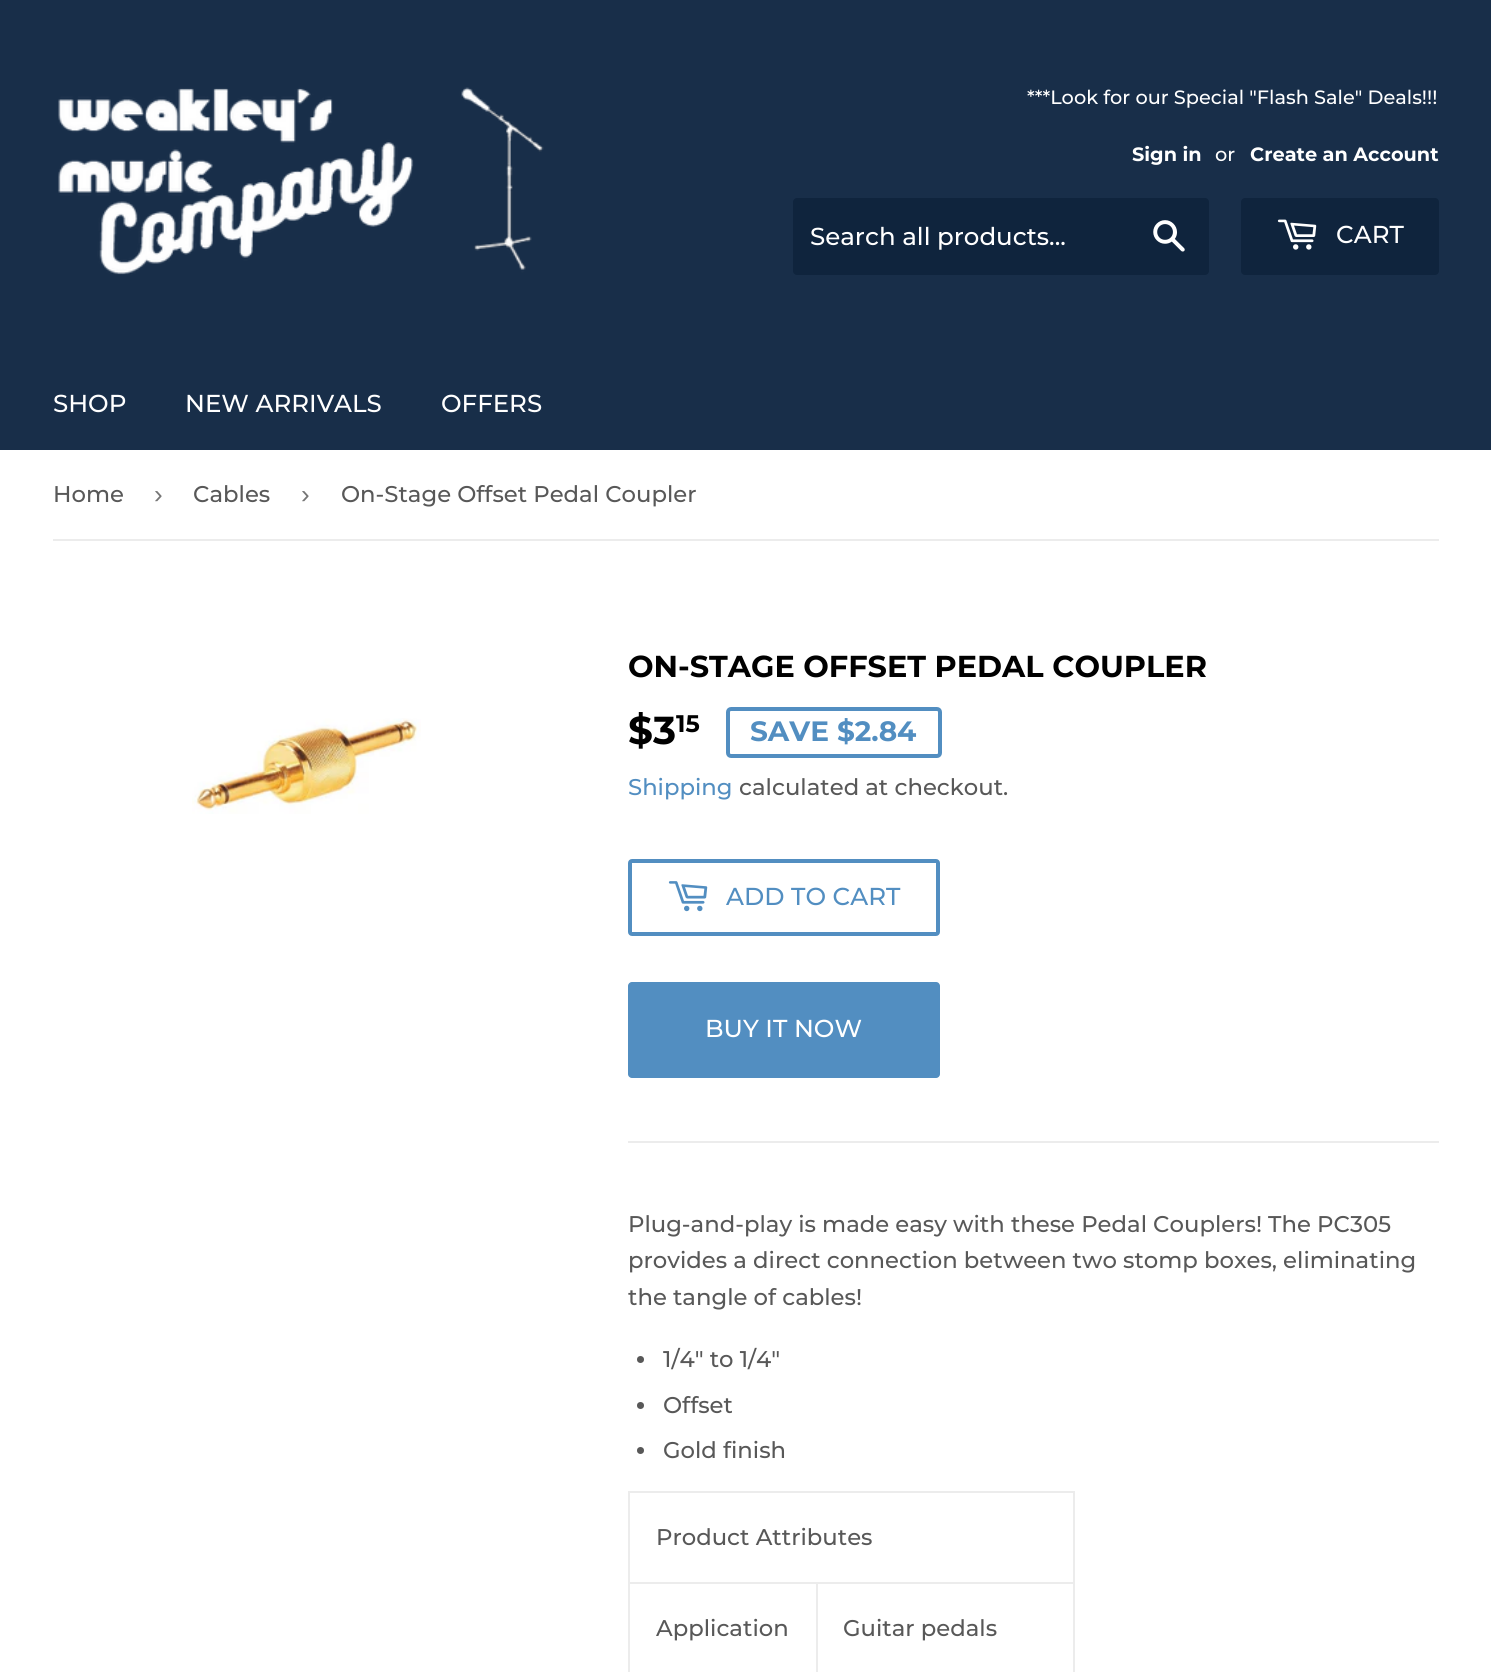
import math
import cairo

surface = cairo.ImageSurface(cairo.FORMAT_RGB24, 1491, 1672)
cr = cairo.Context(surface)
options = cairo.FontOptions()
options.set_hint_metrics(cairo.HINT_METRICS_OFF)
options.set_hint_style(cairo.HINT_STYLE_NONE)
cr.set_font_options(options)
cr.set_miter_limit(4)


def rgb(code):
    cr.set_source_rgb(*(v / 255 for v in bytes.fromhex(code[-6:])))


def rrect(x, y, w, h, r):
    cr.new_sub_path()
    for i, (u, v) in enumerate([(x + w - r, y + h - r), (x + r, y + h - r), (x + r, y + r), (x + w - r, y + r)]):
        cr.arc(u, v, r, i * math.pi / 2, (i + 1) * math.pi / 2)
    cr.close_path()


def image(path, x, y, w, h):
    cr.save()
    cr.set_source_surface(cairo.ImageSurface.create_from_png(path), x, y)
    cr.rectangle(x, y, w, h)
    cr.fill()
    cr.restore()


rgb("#ffffff")
cr.paint()
rgb("#182e49")
cr.rectangle(0, 0, 1491, 450)
cr.fill()
image("img/1.png", 58, 87, 486, 188)
rgb("#0f243d")
rrect(793, 198, 416, 77, 4)
cr.fill()
image("img/2.png", 1153, 220, 32, 32)
rrect(1241, 198, 198, 77, 4)
cr.fill()
image("img/3.png", 1277, 219, 40, 31)
rgb("#ececec")
cr.rectangle(53, 539, 1386, 2)
cr.fill()
image("img/4.png", 192, 718, 229, 96)
rrect(728, 709, 212, 47, 3)
rgb("#528ec1")
cr.set_line_width(4)
cr.stroke()
rrect(630, 861, 308, 73, 2)
cr.stroke()
image("img/5.png", 668, 881, 40, 31)
rrect(628, 982, 312, 96, 4)
cr.fill()
rgb("#ececec")
cr.rectangle(628, 1141, 811, 2)
cr.fill()
rgb("#585858")
cr.arc(640.5, 1359.5, 3.5, 0, 2 * math.pi)
cr.fill()
cr.arc(640.5, 1405.5, 3.5, 0, 2 * math.pi)
cr.fill()
cr.arc(640.5, 1450.5, 3.5, 0, 2 * math.pi)
cr.fill()
for x, y, w, h, color in [
    (628, 1491, 447, 2, "#ececec"),
    (816, 1582, 259, 2, "#ececec"),
    (1073, 1582, 2, 90, "#ececec"),
    (1073, 1491, 2, 93, "#ececec"),
    (816, 1582, 2, 90, "#ececec"),
    (628, 1582, 189, 2, "#ececec"),
    (628, 1582, 2, 90, "#ececec"),
    (628, 1491, 2, 93, "#ececec"),
]:
    rgb(color)
    cr.rectangle(x, y, w, h)
    cr.fill()
cr.select_font_face("Montserrat Medium")
cr.set_font_size(19.3)
rgb("#ffffff")
cr.move_to(1027, 104)
cr.show_text("***Look for our Special \"Flash Sale\" Deals!!!")
cr.select_font_face("Montserrat", cairo.FONT_SLANT_NORMAL, cairo.FONT_WEIGHT_BOLD)
cr.move_to(1132, 161)
cr.show_text("Sign in")
cr.select_font_face("Montserrat Medium")
cr.move_to(1215, 161)
cr.show_text("or")
cr.select_font_face("Montserrat", cairo.FONT_SLANT_NORMAL, cairo.FONT_WEIGHT_BOLD)
cr.move_to(1250, 161)
cr.show_text("Create an Account")
cr.select_font_face("Montserrat Medium")
cr.set_font_size(24.5)
for x, y, s in [
    (810, 245, "Search all products..."),
    (1336, 243, "CART"),
    (53, 412, "SHOP"),
    (185, 412, "NEW ARRIVALS"),
    (441, 412, "OFFERS"),
]:
    cr.move_to(x, y)
    cr.show_text(s)
cr.set_font_size(22.75)
rgb("#585858")
cr.move_to(53, 502)
cr.show_text("Home")
cr.select_font_face("Liberation Sans")
cr.set_font_size(26)
rgb("#767676")
cr.move_to(154, 503)
cr.show_text("›")
cr.select_font_face("Montserrat Medium")
cr.set_font_size(22.75)
rgb("#585858")
cr.move_to(193, 502)
cr.show_text("Cables")
cr.select_font_face("Liberation Sans")
cr.set_font_size(26)
rgb("#767676")
cr.move_to(301, 503)
cr.show_text("›")
cr.select_font_face("Montserrat Medium")
cr.set_font_size(22.75)
rgb("#585858")
cr.move_to(341, 502)
cr.show_text("On-Stage Offset Pedal Coupler")
cr.select_font_face("Montserrat", cairo.FONT_SLANT_NORMAL, cairo.FONT_WEIGHT_BOLD)
cr.set_font_size(30.3)
rgb("#000000")
cr.move_to(628, 677)
cr.show_text("ON-STAGE OFFSET PEDAL COUPLER")
cr.set_font_size(39)
cr.move_to(628, 744)
cr.show_text("$3")
cr.set_font_size(24)
cr.move_to(676, 732)
cr.show_text("15")
cr.set_font_size(28)
rgb("#528ec1")
cr.move_to(750, 741)
cr.show_text("SAVE $2.84")
cr.select_font_face("Montserrat Medium")
cr.set_font_size(22.75)
cr.move_to(628, 795)
cr.show_text("Shipping")
rgb("#585858")
cr.move_to(739, 795)
cr.show_text("calculated at checkout.")
cr.set_font_size(24.5)
rgb("#528ec1")
cr.move_to(726, 905)
cr.show_text("ADD TO CART")
rgb("#ffffff")
cr.move_to(705, 1037)
cr.show_text("BUY IT NOW")
cr.set_font_size(22.75)
rgb("#585858")
for x, y, s in [
    (628, 1232, "Plug-and-play is made easy with these Pedal Couplers! The PC305"),
    (628, 1268, "provides a direct connection between two stomp boxes, eliminating"),
    (628, 1305, "the tangle of cables!"),
    (663, 1367, "1/4\" to 1/4\""),
    (663, 1413, "Offset"),
    (663, 1458, "Gold finish"),
    (656, 1545, "Product Attributes"),
    (656, 1636, "Application"),
    (843, 1636, "Guitar pedals"),
]:
    cr.move_to(x, y)
    cr.show_text(s)
surface.write_to_png("page.png")
